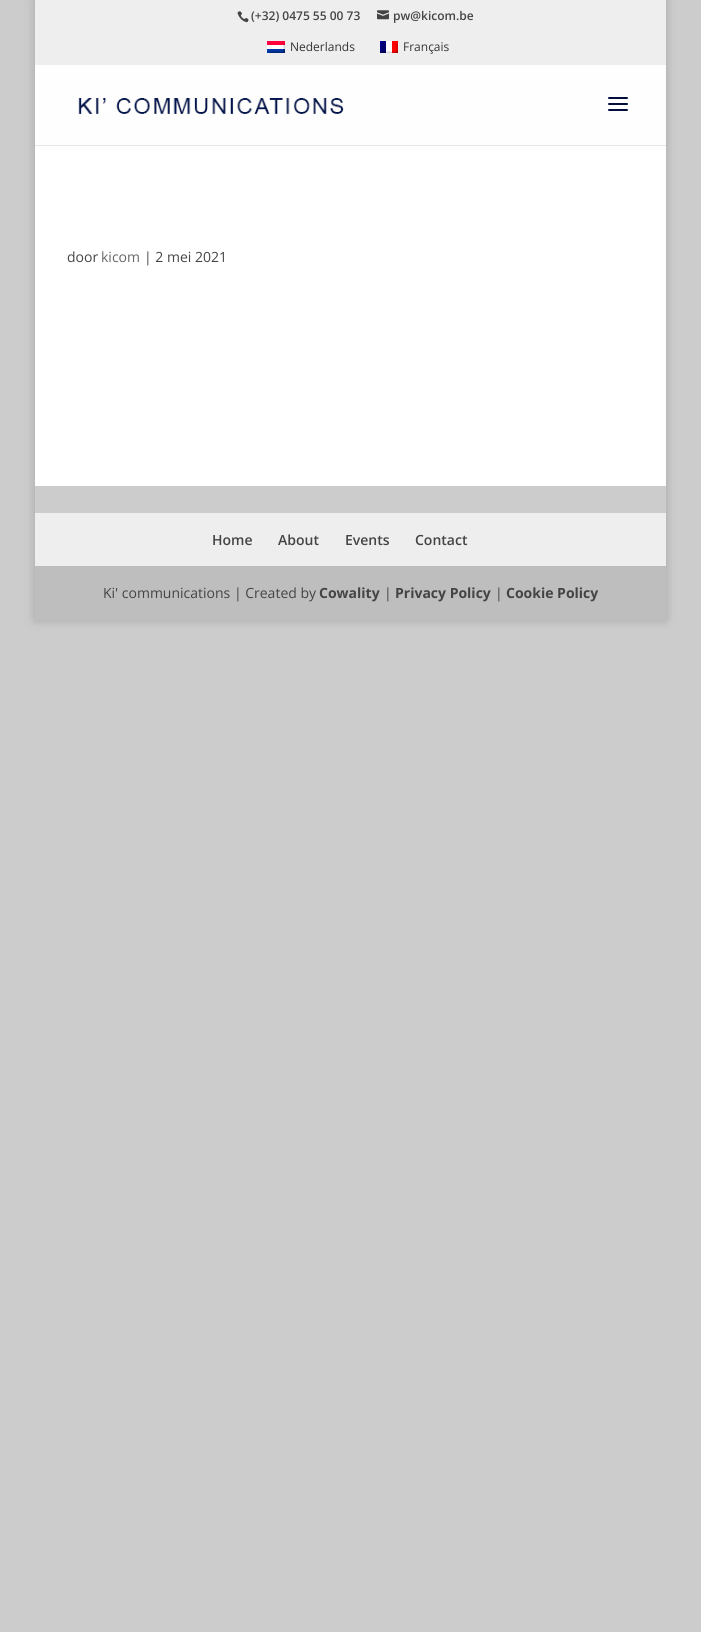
import math
import cairo

surface = cairo.ImageSurface(cairo.FORMAT_RGB24, 701, 1632)
cr = cairo.Context(surface)
options = cairo.FontOptions()
options.set_hint_metrics(cairo.HINT_METRICS_OFF)
options.set_hint_style(cairo.HINT_STYLE_NONE)
cr.set_font_options(options)
cr.set_miter_limit(4)


def rgb(code):
    cr.set_source_rgb(*(v / 255 for v in bytes.fromhex(code[-6:])))


def rrect(x, y, w, h, r):
    cr.new_sub_path()
    for i, (u, v) in enumerate([(x + w - r, y + h - r), (x + r, y + h - r), (x + r, y + r), (x + w - r, y + r)]):
        cr.arc(u, v, r, i * math.pi / 2, (i + 1) * math.pi / 2)
    cr.close_path()


def soft_shadow(x, y, w, h, r, blur, alpha):
    cr.push_group_with_content(cairo.CONTENT_ALPHA)
    cr.set_operator(cairo.OPERATOR_SOURCE)
    for i in range(15, -16, -2):
        e = blur * i / 6
        if min(w, h) + 2 * e > 0:
            cr.set_source_rgba(0, 0, 0, alpha * math.erfc((i - 1) / 8.5) / 2)
            rrect(x - e, y - e, w + 2 * e, h + 2 * e, max(0, min(r + e + blur * .6, min(w, h) / 2 + e)))
            cr.fill()
    cr.mask(cr.pop_group())


def image(path, x, y, w, h):
    cr.save()
    cr.set_source_surface(cairo.ImageSurface.create_from_png(path), x, y)
    cr.rectangle(x, y, w, h)
    cr.fill()
    cr.restore()


rgb("#cccccc")
cr.paint()
cr.save()
cr.set_fill_rule(cairo.FILL_RULE_EVEN_ODD)
cr.new_path()
cr.move_to(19, 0)
cr.line_to(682, 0)
cr.line_to(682, 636)
cr.line_to(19, 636)
cr.close_path()
cr.move_to(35, 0)
cr.line_to(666, 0)
cr.line_to(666, 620)
cr.line_to(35, 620)
cr.close_path()
cr.clip()
rgb("#000000")
soft_shadow(35, 0, 631, 620, 0, 5, 0.2)
cr.restore()
rgb("#eeeeee")
cr.rectangle(35, 0, 631, 65)
cr.fill()
image("img/1.png", 237, 11, 12, 12)
image("img/2.png", 377, 10, 12, 10)
image("img/3.png", 267, 41, 18, 12)
image("img/4.png", 380, 41, 18, 12)
rgb("#e6e6e6")
cr.rectangle(35, 145, 631, 1)
cr.fill()
rgb("#fefefe")
cr.rectangle(35, 65, 631, 80)
cr.fill()
image("img/5.png", 78, 98, 266, 16)
image("img/6.png", 608, 97, 20, 14)
for x, y, w, h, color in [
    (35, 146, 631, 340, "#ffffff"),
    (35, 513, 631, 53, "#eeeeee"),
    (35, 566, 631, 54, "#bebebe"),
]:
    rgb(color)
    cr.rectangle(x, y, w, h)
    cr.fill()
cr.select_font_face("Open Sans SemiBold")
cr.set_font_size(12)
rgb("#444444")
cr.move_to(251, 20)
cr.show_text("(+32) 0475 55 00 73")
cr.move_to(393, 20)
cr.show_text("pw@kicom.be")
cr.select_font_face("Open Sans")
rgb("#333333")
cr.move_to(290, 51)
cr.show_text("Nederlands")
cr.move_to(403, 51)
cr.show_text("Français")
cr.set_font_size(14)
rgb("#444444")
cr.move_to(67, 262)
cr.show_text("door")
rgb("#666666")
cr.move_to(101, 262)
cr.show_text("kicom")
rgb("#444444")
cr.move_to(144, 262)
cr.show_text("| 2 mei 2021")
cr.select_font_face("Open Sans SemiBold")
for x, y, s in [
    (212, 545, "Home"),
    (278, 545, "About"),
    (345, 545, "Events"),
    (415, 545, "Contact"),
]:
    cr.move_to(x, y)
    cr.show_text(s)
cr.select_font_face("Open Sans")
cr.move_to(103, 598)
cr.show_text("Ki' communications | Created by")
cr.select_font_face("Open Sans", cairo.FONT_SLANT_NORMAL, cairo.FONT_WEIGHT_BOLD)
cr.move_to(319, 598)
cr.show_text("Cowality")
cr.select_font_face("Open Sans")
cr.move_to(384, 598)
cr.show_text("|")
cr.select_font_face("Open Sans", cairo.FONT_SLANT_NORMAL, cairo.FONT_WEIGHT_BOLD)
cr.move_to(395, 598)
cr.show_text("Privacy Policy")
cr.select_font_face("Open Sans")
cr.move_to(495, 598)
cr.show_text("|")
cr.select_font_face("Open Sans", cairo.FONT_SLANT_NORMAL, cairo.FONT_WEIGHT_BOLD)
cr.move_to(506, 598)
cr.show_text("Cookie Policy")
surface.write_to_png("page.png")
